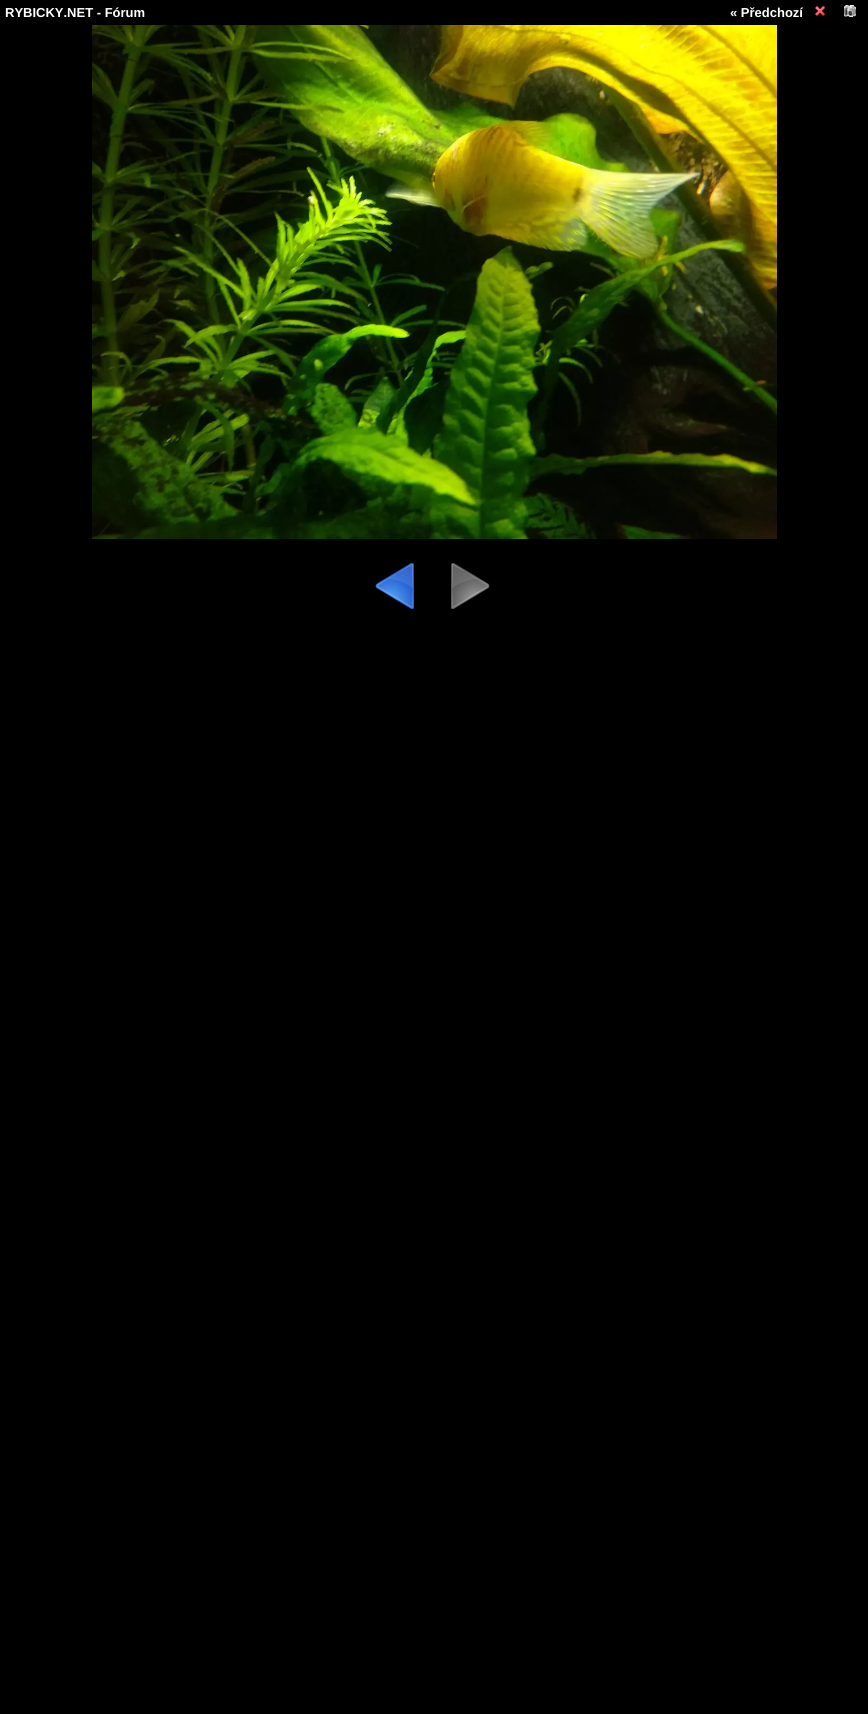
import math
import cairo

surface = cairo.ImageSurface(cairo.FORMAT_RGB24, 868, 1714)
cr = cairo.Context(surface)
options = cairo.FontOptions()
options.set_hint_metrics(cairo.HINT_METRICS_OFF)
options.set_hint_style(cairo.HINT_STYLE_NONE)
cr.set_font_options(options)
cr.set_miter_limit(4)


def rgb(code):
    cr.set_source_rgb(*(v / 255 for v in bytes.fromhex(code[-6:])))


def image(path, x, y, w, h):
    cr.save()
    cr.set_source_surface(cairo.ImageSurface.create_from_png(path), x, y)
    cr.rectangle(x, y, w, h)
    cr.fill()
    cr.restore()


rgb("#000000")
cr.paint()
image("img/1.png", 814, 5, 12, 12)
image("img/2.png", 844, 5, 12, 12)
image("img/3.png", 92, 25, 685, 514)
image("img/4.png", 375, 563, 39, 46)
image("img/5.png", 451, 563, 39, 46)
cr.select_font_face("Liberation Sans", cairo.FONT_SLANT_NORMAL, cairo.FONT_WEIGHT_BOLD)
cr.set_font_size(13)
rgb("#ffffff")
cr.move_to(5, 17)
cr.show_text("RYBICKY.NET - Fórum")
cr.move_to(730, 17)
cr.show_text("« Předchozí")
surface.write_to_png("page.png")
